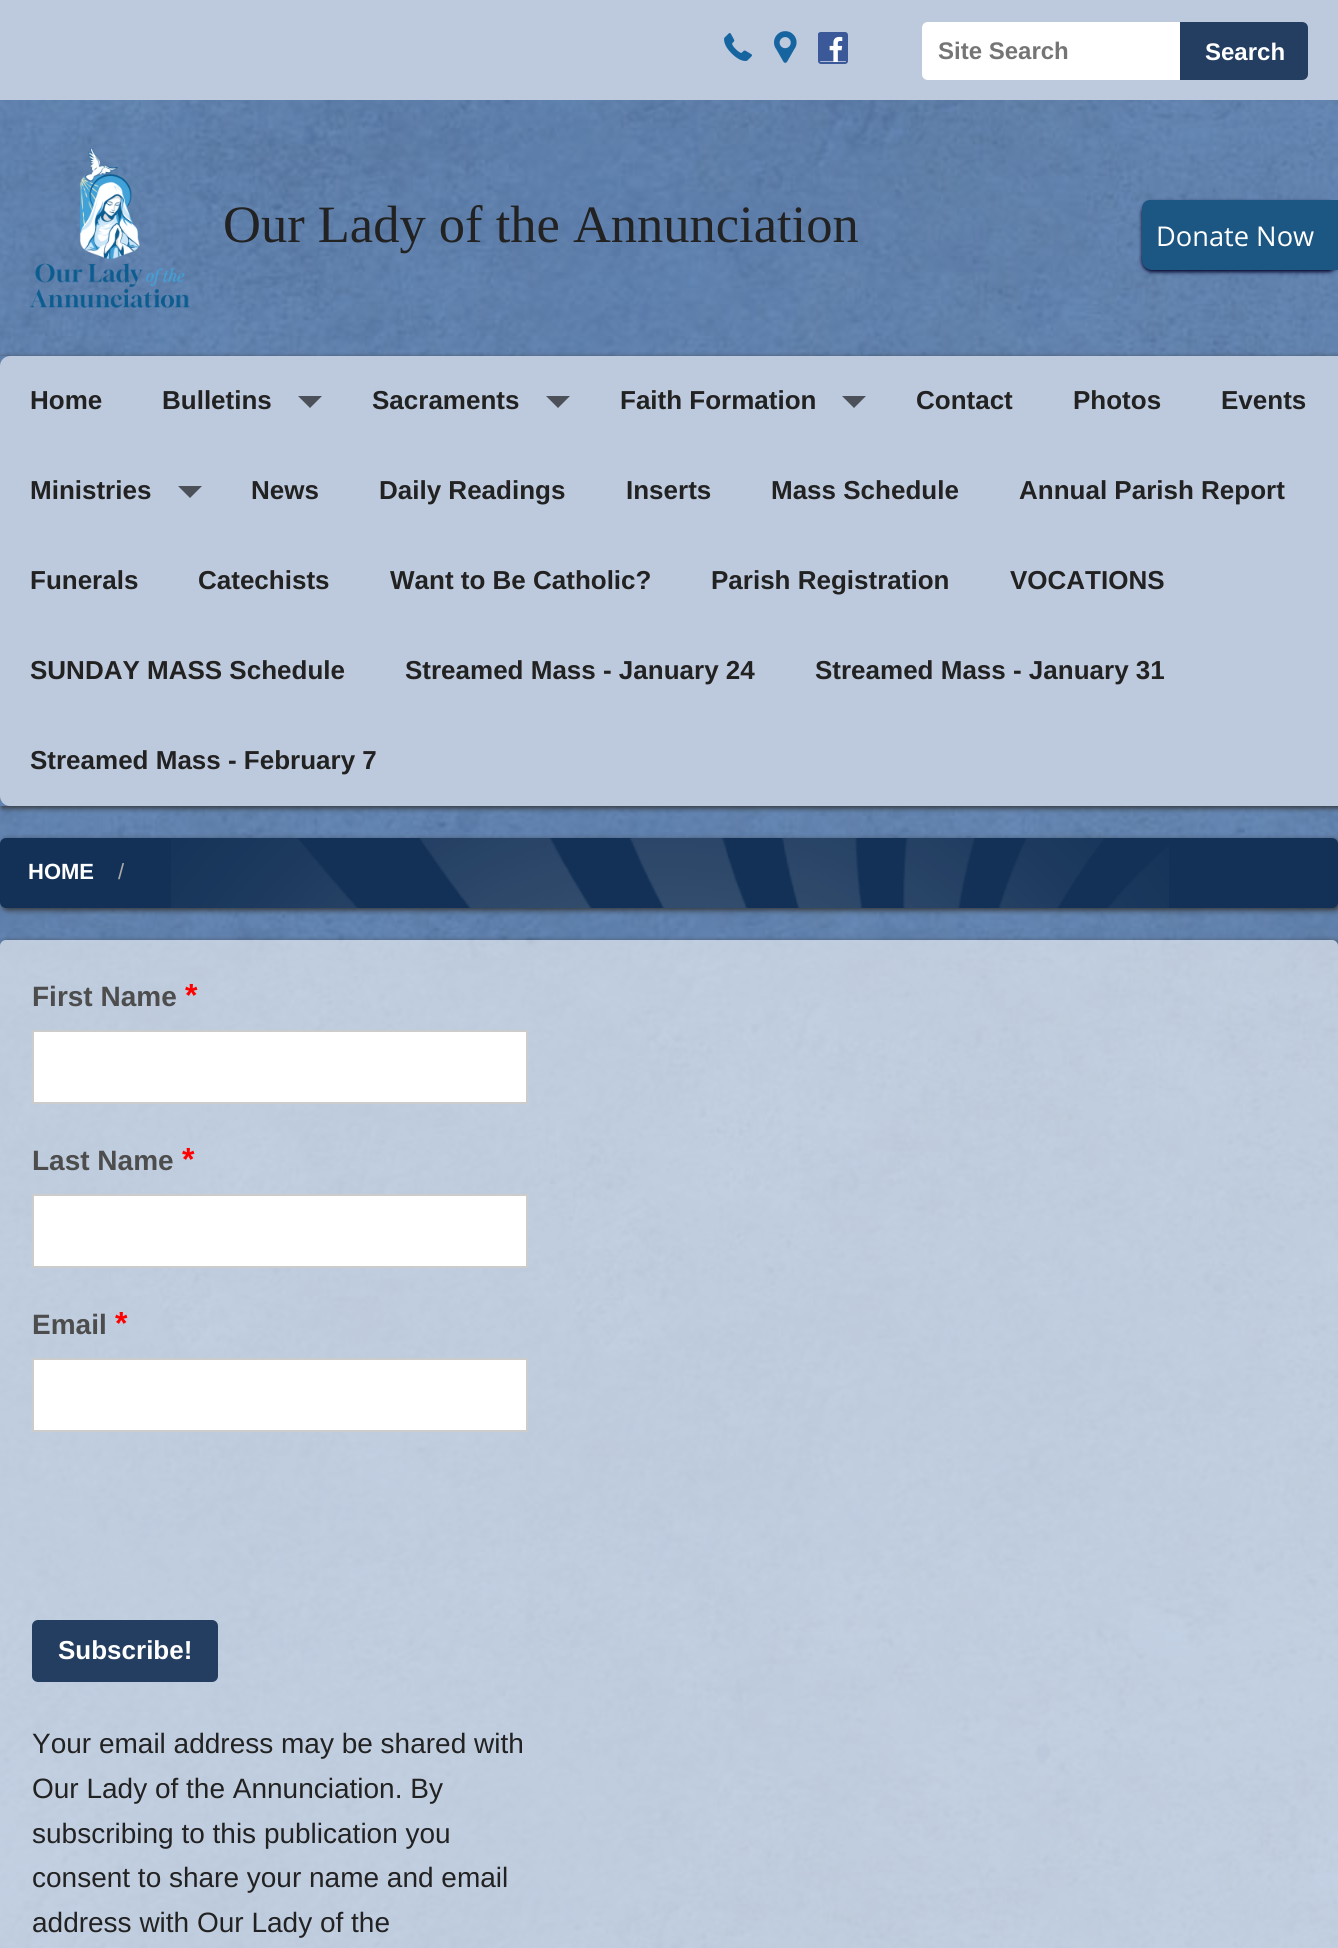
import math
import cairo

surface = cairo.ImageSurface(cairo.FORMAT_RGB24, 1338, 1948)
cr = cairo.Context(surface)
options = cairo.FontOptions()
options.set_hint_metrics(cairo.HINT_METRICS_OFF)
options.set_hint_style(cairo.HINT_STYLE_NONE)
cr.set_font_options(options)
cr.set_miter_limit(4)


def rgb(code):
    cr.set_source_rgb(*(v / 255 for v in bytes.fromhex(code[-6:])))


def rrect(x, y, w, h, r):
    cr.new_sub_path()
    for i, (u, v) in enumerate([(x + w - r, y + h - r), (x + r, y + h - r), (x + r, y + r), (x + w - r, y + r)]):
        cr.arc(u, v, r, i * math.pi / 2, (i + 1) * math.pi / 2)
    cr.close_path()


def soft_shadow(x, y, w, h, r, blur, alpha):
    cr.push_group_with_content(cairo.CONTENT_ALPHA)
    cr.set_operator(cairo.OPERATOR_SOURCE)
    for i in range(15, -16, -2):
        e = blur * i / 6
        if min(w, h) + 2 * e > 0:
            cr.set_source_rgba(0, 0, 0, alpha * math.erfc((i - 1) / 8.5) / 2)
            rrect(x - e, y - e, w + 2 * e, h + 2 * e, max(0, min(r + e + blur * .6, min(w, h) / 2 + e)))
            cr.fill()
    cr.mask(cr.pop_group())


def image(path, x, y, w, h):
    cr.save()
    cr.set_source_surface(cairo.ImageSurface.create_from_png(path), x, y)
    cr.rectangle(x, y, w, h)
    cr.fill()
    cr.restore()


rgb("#ffffff")
cr.paint()
image("img/1.png", 0, 100, 1338, 1848)
rgb("#bdc9dc")
cr.rectangle(0, 0, 1338, 100)
cr.fill()
image("img/2.png", 724, 33, 28, 28)
image("img/3.png", 774, 31, 23, 32)
rgb("#ffffff")
rrect(819, 33, 28, 30, 2)
cr.fill_preserve()
rgb("#3b5998")
cr.stroke()
image("img/4.png", 818, 32, 28, 30)
rgb("#ffffff")
cr.new_path()
cr.move_to(928, 22)
cr.line_to(1180, 22)
cr.line_to(1180, 80)
cr.line_to(928, 80)
cr.curve_to(924.5, 80, 922, 77.5, 922, 74)
cr.line_to(922, 28)
cr.curve_to(922, 24.5, 924.5, 22, 928, 22)
cr.close_path()
cr.fill()
rgb("#243e61")
cr.new_path()
cr.move_to(1180, 22)
cr.line_to(1302, 22)
cr.curve_to(1305.5, 22, 1308, 24.5, 1308, 28)
cr.line_to(1308, 74)
cr.curve_to(1308, 77.5, 1305.5, 80, 1302, 80)
cr.line_to(1180, 80)
cr.close_path()
cr.fill()
image("img/5.png", 30, 148, 160, 160)
cr.save()
cr.set_fill_rule(cairo.FILL_RULE_EVEN_ODD)
cr.new_path()
cr.move_to(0, 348)
cr.line_to(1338, 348)
cr.line_to(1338, 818)
cr.line_to(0, 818)
cr.close_path()
cr.move_to(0, 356)
cr.line_to(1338, 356)
cr.line_to(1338, 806)
cr.line_to(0, 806)
cr.close_path()
cr.clip()
rgb("#333333")
soft_shadow(2, 358, 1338, 450, 0, 3, 1)
cr.restore()
rgb("#bdc9dc")
cr.new_path()
cr.move_to(10, 356)
cr.line_to(1338, 356)
cr.line_to(1338, 806)
cr.line_to(10, 806)
cr.curve_to(4.5, 806, 0, 801.5, 0, 796)
cr.line_to(0, 366)
cr.curve_to(0, 360.5, 4.5, 356, 10, 356)
cr.close_path()
cr.fill()
rgb("#4c5058")
cr.new_path()
cr.move_to(298, 396)
cr.line_to(322, 396)
cr.line_to(310, 408)
cr.close_path()
cr.fill()
cr.new_path()
cr.move_to(546, 396)
cr.line_to(570, 396)
cr.line_to(558, 408)
cr.close_path()
cr.fill()
cr.new_path()
cr.move_to(842, 396)
cr.line_to(866, 396)
cr.line_to(854, 408)
cr.close_path()
cr.fill()
cr.new_path()
cr.move_to(178, 486)
cr.line_to(202, 486)
cr.line_to(190, 498)
cr.close_path()
cr.fill()
rgb("#000029")
soft_shadow(1142, 202, 196, 70, 10, 2, 1)
rgb("#1c5682")
cr.new_path()
cr.move_to(1150, 200)
cr.line_to(1338, 200)
cr.line_to(1338, 270)
cr.line_to(1152, 270)
cr.curve_to(1146.5, 270, 1142, 265.5, 1142, 260)
cr.line_to(1142, 208)
cr.curve_to(1142, 203.5, 1145.5, 200, 1150, 200)
cr.close_path()
cr.fill()
rgb("#333333")
soft_shadow(2, 840, 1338, 70, 6, 3, 1)
rgb("#133157")
rrect(0, 838, 1338, 70, 6)
cr.fill()
image("img/6.png", 171, 838, 998, 70)
cr.save()
cr.set_fill_rule(cairo.FILL_RULE_EVEN_ODD)
cr.new_path()
cr.move_to(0, 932)
cr.line_to(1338, 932)
cr.line_to(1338, 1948)
cr.line_to(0, 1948)
cr.close_path()
cr.move_to(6, 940)
cr.line_to(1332, 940)
cr.curve_to(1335.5, 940, 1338, 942.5, 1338, 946)
cr.line_to(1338, 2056)
cr.curve_to(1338, 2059.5, 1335.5, 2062, 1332, 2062)
cr.line_to(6, 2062)
cr.curve_to(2.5, 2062, 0, 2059.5, 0, 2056)
cr.line_to(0, 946)
cr.curve_to(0, 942.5, 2.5, 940, 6, 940)
cr.close_path()
cr.clip()
rgb("#333333")
soft_shadow(2, 942, 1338, 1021, 6, 3, 1)
cr.restore()
cr.set_source_rgba(1, 1, 1, 0.6)
rrect(0, 940, 1338, 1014, 6)
cr.fill()
rgb("#ffffff")
cr.rectangle(33, 1031, 494, 72)
cr.fill_preserve()
rgb("#cccccc")
cr.stroke()
rgb("#ffffff")
cr.rectangle(33, 1195, 494, 72)
cr.fill_preserve()
rgb("#cccccc")
cr.stroke()
rgb("#ffffff")
cr.rectangle(33, 1359, 494, 72)
cr.fill_preserve()
rgb("#cccccc")
cr.stroke()
rgb("#243e61")
rrect(32, 1620, 186, 62, 6)
cr.fill()
cr.select_font_face("Liberation Sans", cairo.FONT_SLANT_NORMAL, cairo.FONT_WEIGHT_BOLD)
cr.set_font_size(24)
rgb("#757575")
cr.move_to(938, 59)
cr.show_text("Site Search")
rgb("#ffffff")
cr.move_to(1205, 60)
cr.show_text("Search")
cr.select_font_face("Liberation Serif")
cr.set_font_size(52.5)
rgb("#222222")
cr.move_to(223, 242)
cr.show_text("Our Lady of the Annunciation")
cr.select_font_face("Liberation Sans", cairo.FONT_SLANT_NORMAL, cairo.FONT_WEIGHT_BOLD)
cr.set_font_size(26)
for x, y, s in [
    (30, 409, "Home"),
    (162, 409, "Bulletins"),
    (372, 409, "Sacraments"),
    (620, 409, "Faith Formation"),
    (916, 409, "Contact"),
    (1073, 409, "Photos"),
    (1221, 409, "Events"),
    (30, 499, "Ministries"),
    (251, 499, "News"),
    (379, 499, "Daily Readings"),
    (626, 499, "Inserts"),
    (771, 499, "Mass Schedule"),
    (1019, 499, "Annual Parish Report"),
    (30, 589, "Funerals"),
    (198, 589, "Catechists"),
    (390, 589, "Want to Be Catholic?"),
    (711, 589, "Parish Registration"),
    (1010, 589, "VOCATIONS"),
    (30, 679, "SUNDAY MASS Schedule"),
    (405, 679, "Streamed Mass - January 24"),
    (815, 679, "Streamed Mass - January 31"),
    (30, 769, "Streamed Mass - February 7"),
]:
    cr.move_to(x, y)
    cr.show_text(s)
cr.select_font_face("Open Sans")
cr.set_font_size(27.25)
rgb("#ffffff")
cr.move_to(1156, 246)
cr.show_text("Donate Now")
cr.select_font_face("Liberation Sans", cairo.FONT_SLANT_NORMAL, cairo.FONT_WEIGHT_BOLD)
cr.set_font_size(22)
cr.move_to(28, 879)
cr.show_text("HOME")
cr.select_font_face("Liberation Sans")
rgb("#aaaaaa")
cr.move_to(118, 879)
cr.show_text("/")
cr.select_font_face("Liberation Sans", cairo.FONT_SLANT_NORMAL, cairo.FONT_WEIGHT_BOLD)
cr.set_font_size(28)
rgb("#4d4d4d")
cr.move_to(32, 1006)
cr.show_text("First Name")
cr.set_font_size(32)
rgb("#ff0000")
cr.move_to(185, 1006)
cr.show_text("*")
cr.set_font_size(28)
rgb("#4d4d4d")
cr.move_to(32, 1170)
cr.show_text("Last Name")
cr.set_font_size(32)
rgb("#ff0000")
cr.move_to(182, 1170)
cr.show_text("*")
cr.set_font_size(28)
rgb("#4d4d4d")
cr.move_to(32, 1334)
cr.show_text("Email")
cr.set_font_size(32)
rgb("#ff0000")
cr.move_to(115, 1334)
cr.show_text("*")
cr.set_font_size(26)
rgb("#ffffff")
cr.move_to(58, 1659)
cr.show_text("Subscribe!")
cr.select_font_face("Liberation Sans")
cr.set_font_size(28)
rgb("#222222")
for x, y, s in [
    (32, 1753, "Your email address may be shared with"),
    (32, 1798, "Our Lady of the Annunciation. By"),
    (32, 1843, "subscribing to this publication you"),
    (32, 1887, "consent to share your name and email"),
    (32, 1932, "address with Our Lady of the"),
]:
    cr.move_to(x, y)
    cr.show_text(s)
surface.write_to_png("page.png")
